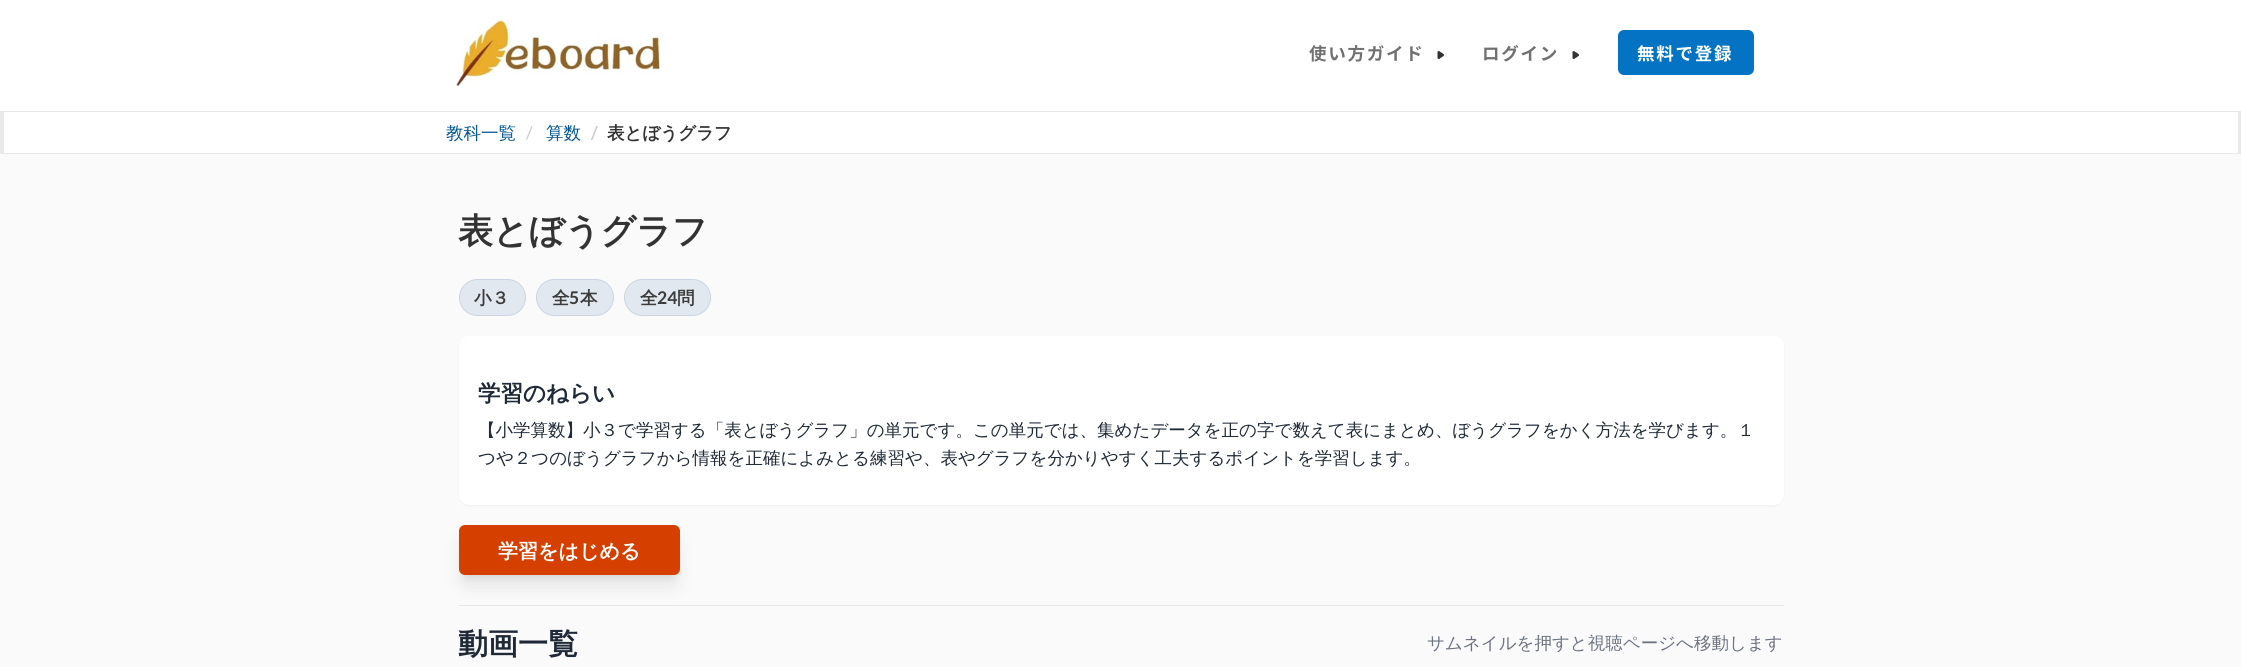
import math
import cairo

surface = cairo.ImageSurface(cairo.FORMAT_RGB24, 2241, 667)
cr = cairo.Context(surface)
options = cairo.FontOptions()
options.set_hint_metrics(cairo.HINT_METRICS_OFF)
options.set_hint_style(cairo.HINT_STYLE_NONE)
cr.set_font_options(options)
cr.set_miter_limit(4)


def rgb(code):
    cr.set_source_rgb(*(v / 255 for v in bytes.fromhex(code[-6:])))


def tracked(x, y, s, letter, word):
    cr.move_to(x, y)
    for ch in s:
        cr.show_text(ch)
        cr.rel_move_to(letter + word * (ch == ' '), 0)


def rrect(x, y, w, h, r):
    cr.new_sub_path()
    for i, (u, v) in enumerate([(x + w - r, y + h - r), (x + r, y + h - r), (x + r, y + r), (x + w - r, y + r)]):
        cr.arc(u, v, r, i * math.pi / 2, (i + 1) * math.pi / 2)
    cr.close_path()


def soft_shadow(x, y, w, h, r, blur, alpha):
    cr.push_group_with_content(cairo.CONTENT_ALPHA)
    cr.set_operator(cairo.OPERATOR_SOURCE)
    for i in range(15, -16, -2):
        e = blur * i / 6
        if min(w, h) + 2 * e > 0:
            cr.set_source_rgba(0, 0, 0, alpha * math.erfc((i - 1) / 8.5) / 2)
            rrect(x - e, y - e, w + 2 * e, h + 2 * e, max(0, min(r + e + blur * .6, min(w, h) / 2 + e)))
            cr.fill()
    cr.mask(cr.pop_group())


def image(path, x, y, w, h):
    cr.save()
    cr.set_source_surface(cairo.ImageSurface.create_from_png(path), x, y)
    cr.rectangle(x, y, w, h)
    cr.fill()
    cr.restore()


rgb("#ffffff")
cr.paint()
image("img/1.png", 456, 15, 205, 74)
image("img/2.png", 1437, 50, 8, 10)
image("img/2.png", 1572, 50, 8, 10)
rgb("#0473c3")
rrect(1618, 30, 136, 45, 6)
cr.fill()
for x, y, w, h, color in [
    (0, 111, 2241, 1, "#e9e9e9"),
    (2238, 111, 3, 43, "#e9e9e9"),
    (0, 153, 2241, 1, "#e9e9e9"),
    (0, 111, 4, 43, "#e9e9e9"),
    (0, 154, 2241, 513, "#fafafa"),
]:
    rgb(color)
    cr.rectangle(x, y, w, h)
    cr.fill()
rgb("#e2e8f0")
rrect(459.5, 279.5, 66, 36, 18)
cr.fill_preserve()
rgb("#cbd5e1")
cr.set_line_width(1)
cr.stroke()
rgb("#e2e8f0")
rrect(536.5, 279.5, 77, 36, 18)
cr.fill_preserve()
rgb("#cbd5e1")
cr.stroke()
rgb("#e2e8f0")
rrect(624.5, 279.5, 86, 36, 18)
cr.fill_preserve()
rgb("#cbd5e1")
cr.stroke()
rgb("#000000")
soft_shadow(459, 338, 1325, 168, 10, 1, 0.05)
rgb("#ffffff")
rrect(459, 336, 1325, 169, 10)
cr.fill()
rgb("#000000")
soft_shadow(464, 535, 211, 40, 1, 4, 0.1)
rgb("#e5e7eb")
cr.rectangle(459, 605, 1325, 1)
cr.fill()
rgb("#000000")
soft_shadow(463, 541, 213, 43, 2.5, 9.5, 0.1)
rgb("#d54000")
rrect(459, 525, 221, 50, 6)
cr.fill()
cr.select_font_face("Noto Sans JP", cairo.FONT_SLANT_NORMAL, cairo.FONT_WEIGHT_BOLD)
cr.set_font_size(17.5)
rgb("#707070")
tracked(1309, 60, "使い方ガイド", 1.75, 0)
tracked(1482, 60, "ログイン", 1.75, 0)
rgb("#ffffff")
tracked(1637, 60, "無料で登録", 1.75, 0)
cr.select_font_face("WenQuanYi Zen Hei Medium")
rgb("#025692")
cr.move_to(446, 139)
cr.show_text("教科一覧")
cr.select_font_face("Lato")
rgb("#cccccc")
cr.move_to(526, 139)
cr.show_text("/")
cr.select_font_face("WenQuanYi Zen Hei Medium")
rgb("#025692")
cr.move_to(546, 139)
cr.show_text("算数")
cr.select_font_face("Lato", cairo.FONT_SLANT_NORMAL, cairo.FONT_WEIGHT_BOLD)
rgb("#cccccc")
cr.move_to(591, 139)
cr.show_text("/")
cr.select_font_face("WenQuanYi Zen Hei", cairo.FONT_SLANT_NORMAL, cairo.FONT_WEIGHT_BOLD)
rgb("#333333")
cr.move_to(607, 139)
cr.show_text("表とぼうグラフ")
cr.set_font_size(35)
cr.move_to(458, 243)
cr.show_text("表とぼうグラフ")
cr.set_font_size(17.5)
rgb("#3b3b3b")
cr.move_to(474, 304)
cr.show_text("小３")
cr.move_to(552, 304)
cr.show_text("全")
cr.select_font_face("Lato", cairo.FONT_SLANT_NORMAL, cairo.FONT_WEIGHT_BOLD)
cr.move_to(569, 304)
cr.show_text("5")
cr.select_font_face("WenQuanYi Zen Hei", cairo.FONT_SLANT_NORMAL, cairo.FONT_WEIGHT_BOLD)
cr.move_to(580, 304)
cr.show_text("本")
cr.move_to(640, 304)
cr.show_text("全")
cr.select_font_face("Lato", cairo.FONT_SLANT_NORMAL, cairo.FONT_WEIGHT_BOLD)
cr.move_to(657, 304)
cr.show_text("24")
cr.select_font_face("WenQuanYi Zen Hei", cairo.FONT_SLANT_NORMAL, cairo.FONT_WEIGHT_BOLD)
cr.move_to(677, 304)
cr.show_text("問")
cr.set_font_size(22.5)
rgb("#1f2937")
cr.move_to(478, 401)
cr.show_text("学習のねらい")
cr.select_font_face("WenQuanYi Zen Hei Medium")
cr.set_font_size(17.5)
cr.move_to(478, 436)
cr.show_text("【小学算数】小３で学習する「表とぼうグラフ」の単元です。この単元では、集めたデータを正の字で数えて表にまとめ、ぼうグラフをかく方法を学びます。１")
cr.move_to(478, 464)
cr.show_text("つや２つのぼうグラフから情報を正確によみとる練習や、表やグラフを分かりやすく工夫するポイントを学習します。")
cr.select_font_face("WenQuanYi Zen Hei", cairo.FONT_SLANT_NORMAL, cairo.FONT_WEIGHT_BOLD)
cr.set_font_size(20)
rgb("#ffffff")
cr.move_to(498, 558)
cr.show_text("学習をはじめる")
cr.set_font_size(30)
rgb("#1f2937")
cr.move_to(458, 654)
cr.show_text("動画一覧")
cr.select_font_face("WenQuanYi Zen Hei Medium")
cr.set_font_size(17.5)
rgb("#6b7280")
cr.move_to(1427, 649)
cr.show_text("サムネイルを押すと視聴ページへ移動します")
surface.write_to_png("page.png")
